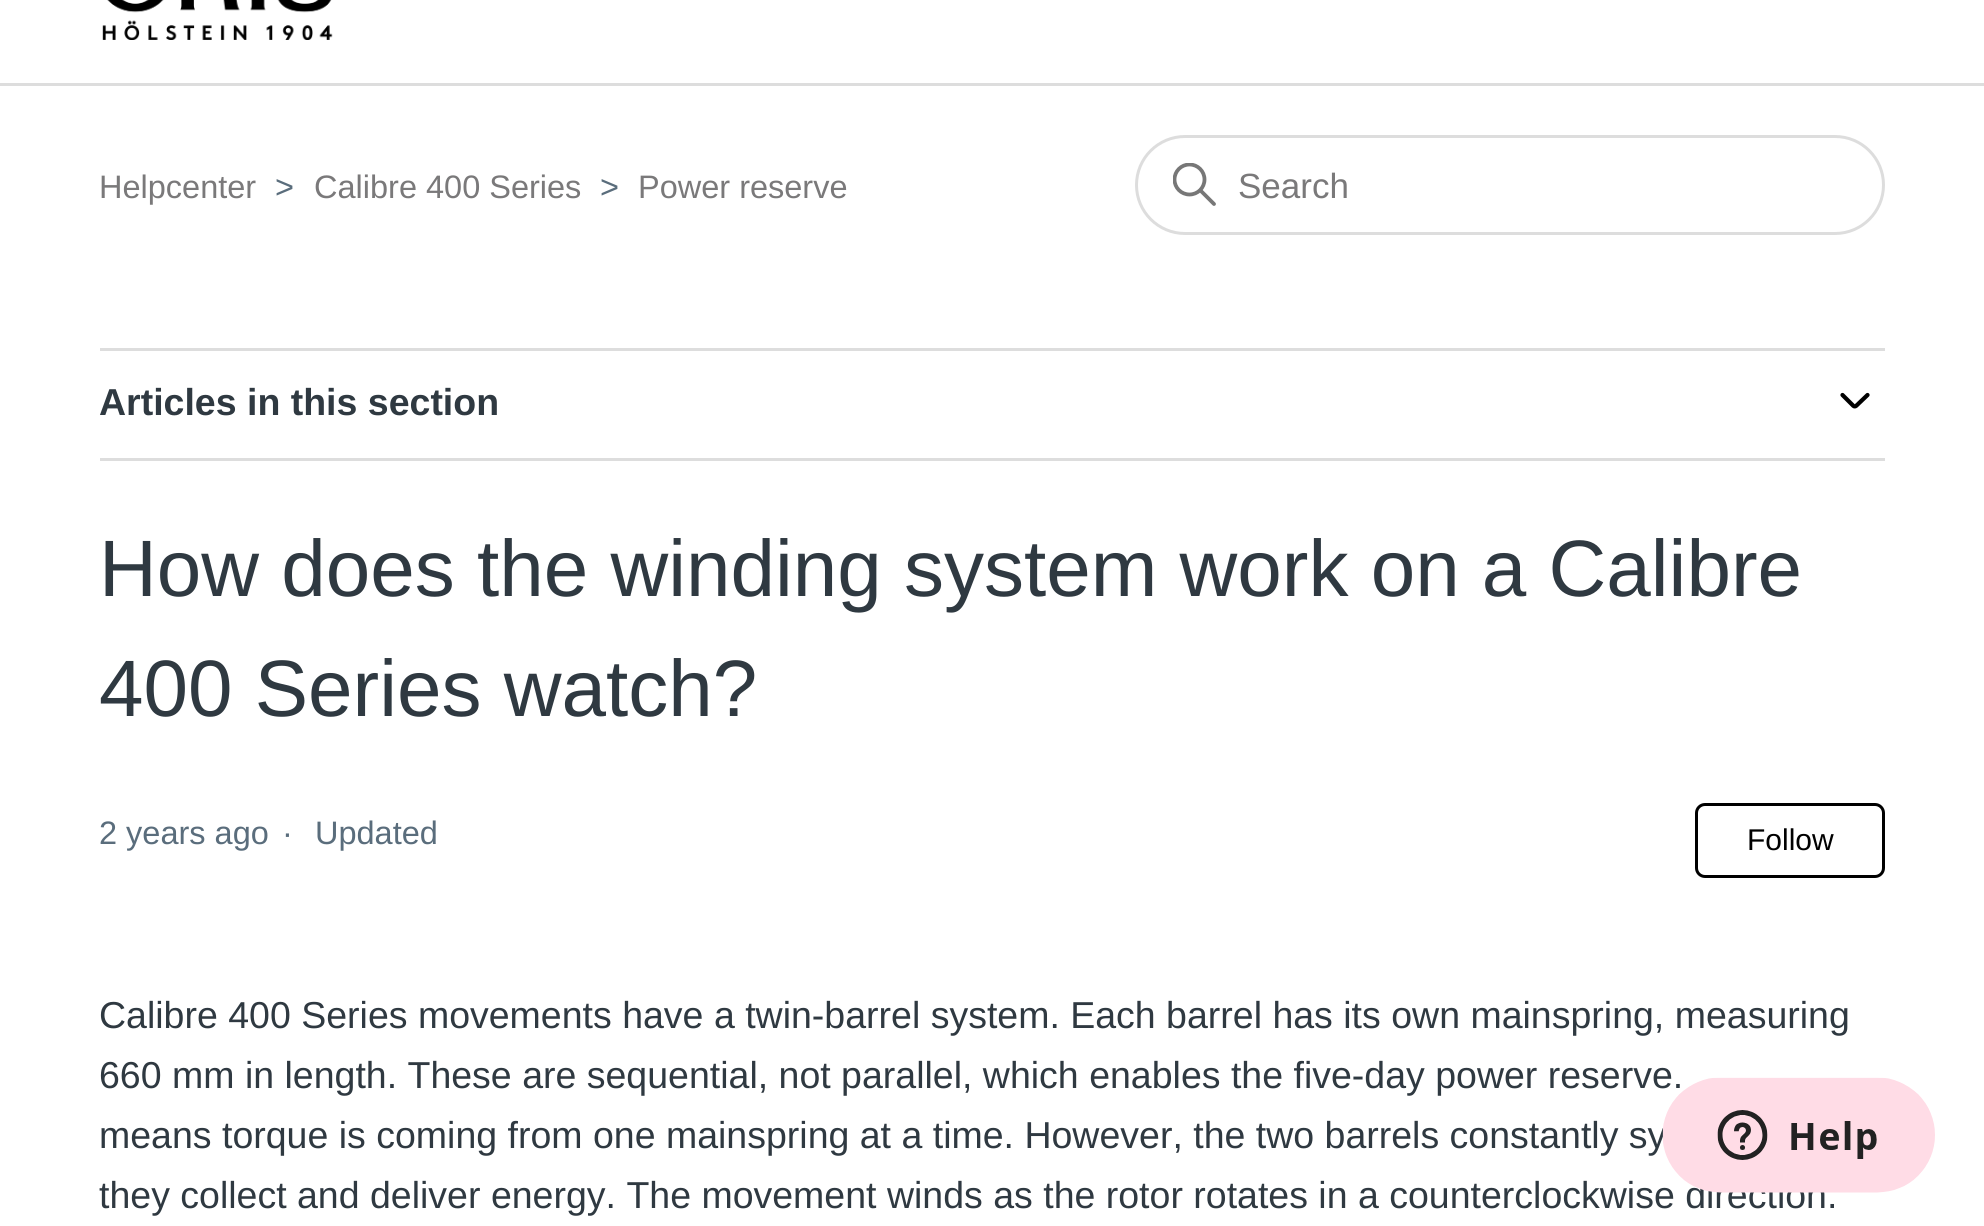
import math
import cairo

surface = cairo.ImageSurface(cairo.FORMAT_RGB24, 1984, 1226)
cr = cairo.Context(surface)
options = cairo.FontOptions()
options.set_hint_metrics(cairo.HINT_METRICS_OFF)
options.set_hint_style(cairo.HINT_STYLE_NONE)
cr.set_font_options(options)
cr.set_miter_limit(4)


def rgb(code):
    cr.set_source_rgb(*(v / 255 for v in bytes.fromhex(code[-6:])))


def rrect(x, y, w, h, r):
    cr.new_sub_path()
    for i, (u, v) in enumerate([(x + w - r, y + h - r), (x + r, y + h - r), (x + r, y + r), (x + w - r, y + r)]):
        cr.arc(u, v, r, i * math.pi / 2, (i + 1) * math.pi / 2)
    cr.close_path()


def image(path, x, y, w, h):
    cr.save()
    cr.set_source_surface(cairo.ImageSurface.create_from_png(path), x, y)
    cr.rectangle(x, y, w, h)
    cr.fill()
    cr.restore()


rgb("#ffffff")
cr.paint()
image("img/1.png", 102, 0, 231, 40)
rgb("#dddddd")
cr.rectangle(0, 83, 1984, 3)
cr.fill()
rrect(1136.5, 136.5, 747, 97, 48.5)
cr.set_line_width(3)
cr.stroke()
cr.save()
cr.rectangle(1173, 163, 45, 45)
cr.clip()
cr.arc(1189.5, 179.5, 15, 0, 2 * math.pi)
rgb("#777777")
cr.set_line_width(3.8)
cr.stroke()
cr.restore()
cr.new_path()
cr.move_to(1214, 204)
cr.line_to(1200.5, 190.5)
rgb("#777777")
cr.set_line_width(3.8)
cr.set_line_cap(cairo.LINE_CAP_ROUND)
cr.stroke()
rgb("#dddddd")
cr.rectangle(100, 348, 1785, 3)
cr.fill()
cr.rectangle(100, 458, 1785, 3)
cr.fill()
cr.new_path()
cr.move_to(1842.5, 395)
cr.line_to(1853.5, 406)
cr.curve_to(1854, 406.5, 1855.5, 406.5, 1856, 406)
cr.line_to(1867.5, 395)
rgb("#000000")
cr.set_line_width(4.2)
cr.stroke()
rrect(1696.5, 804.5, 187, 72, 8.5)
cr.set_line_width(3)
cr.set_line_cap(cairo.LINE_CAP_BUTT)
cr.stroke()
cr.select_font_face("Liberation Sans")
cr.set_font_size(32.5)
rgb("#7a797a")
cr.move_to(99, 198)
cr.show_text("Helpcenter")
rgb("#5a6d7c")
cr.move_to(275, 198)
cr.show_text(">")
rgb("#7a797a")
cr.move_to(314, 198)
cr.show_text("Calibre 400 Series")
rgb("#5a6d7c")
cr.move_to(600, 198)
cr.show_text(">")
rgb("#7a797a")
cr.move_to(638, 198)
cr.show_text("Power reserve")
cr.set_font_size(35)
cr.move_to(1238, 198)
cr.show_text("Search")
cr.select_font_face("Liberation Sans", cairo.FONT_SLANT_NORMAL, cairo.FONT_WEIGHT_BOLD)
cr.set_font_size(37.5)
rgb("#2f3941")
cr.move_to(99, 415)
cr.show_text("Articles in this section")
cr.select_font_face("Liberation Sans")
cr.set_font_size(80)
cr.move_to(99, 596)
cr.show_text("How does the winding system work on a Calibre")
cr.move_to(99, 716)
cr.show_text("400 Series watch?")
cr.set_font_size(32.5)
rgb("#5a6d7c")
for x, y, s in [
    (99, 844, "2 years ago"),
    (282, 844, "·"),
    (315, 844, "Updated"),
]:
    cr.move_to(x, y)
    cr.show_text(s)
cr.set_font_size(30)
rgb("#000000")
cr.move_to(1747, 850)
cr.show_text("Follow")
cr.set_font_size(37.5)
rgb("#2f3941")
for x, y, s in [
    (99, 1028, "Calibre 400 Series movements have a twin-barrel system. Each barrel has its own mainspring, measuring"),
    (99, 1088, "660 mm in length. These are sequential, not parallel, which enables the five-day power reserve."),
    (99, 1148, "means torque is coming from one mainspring at a time. However, the two barrels constantly sy"),
    (99, 1208, "they collect and deliver energy. The movement winds as the rotor rotates in a counterclockwise direction."),
]:
    cr.move_to(x, y)
    cr.show_text(s)
image("img/2.png", 1662, 1077, 273, 116)
surface.write_to_png("page.png")
